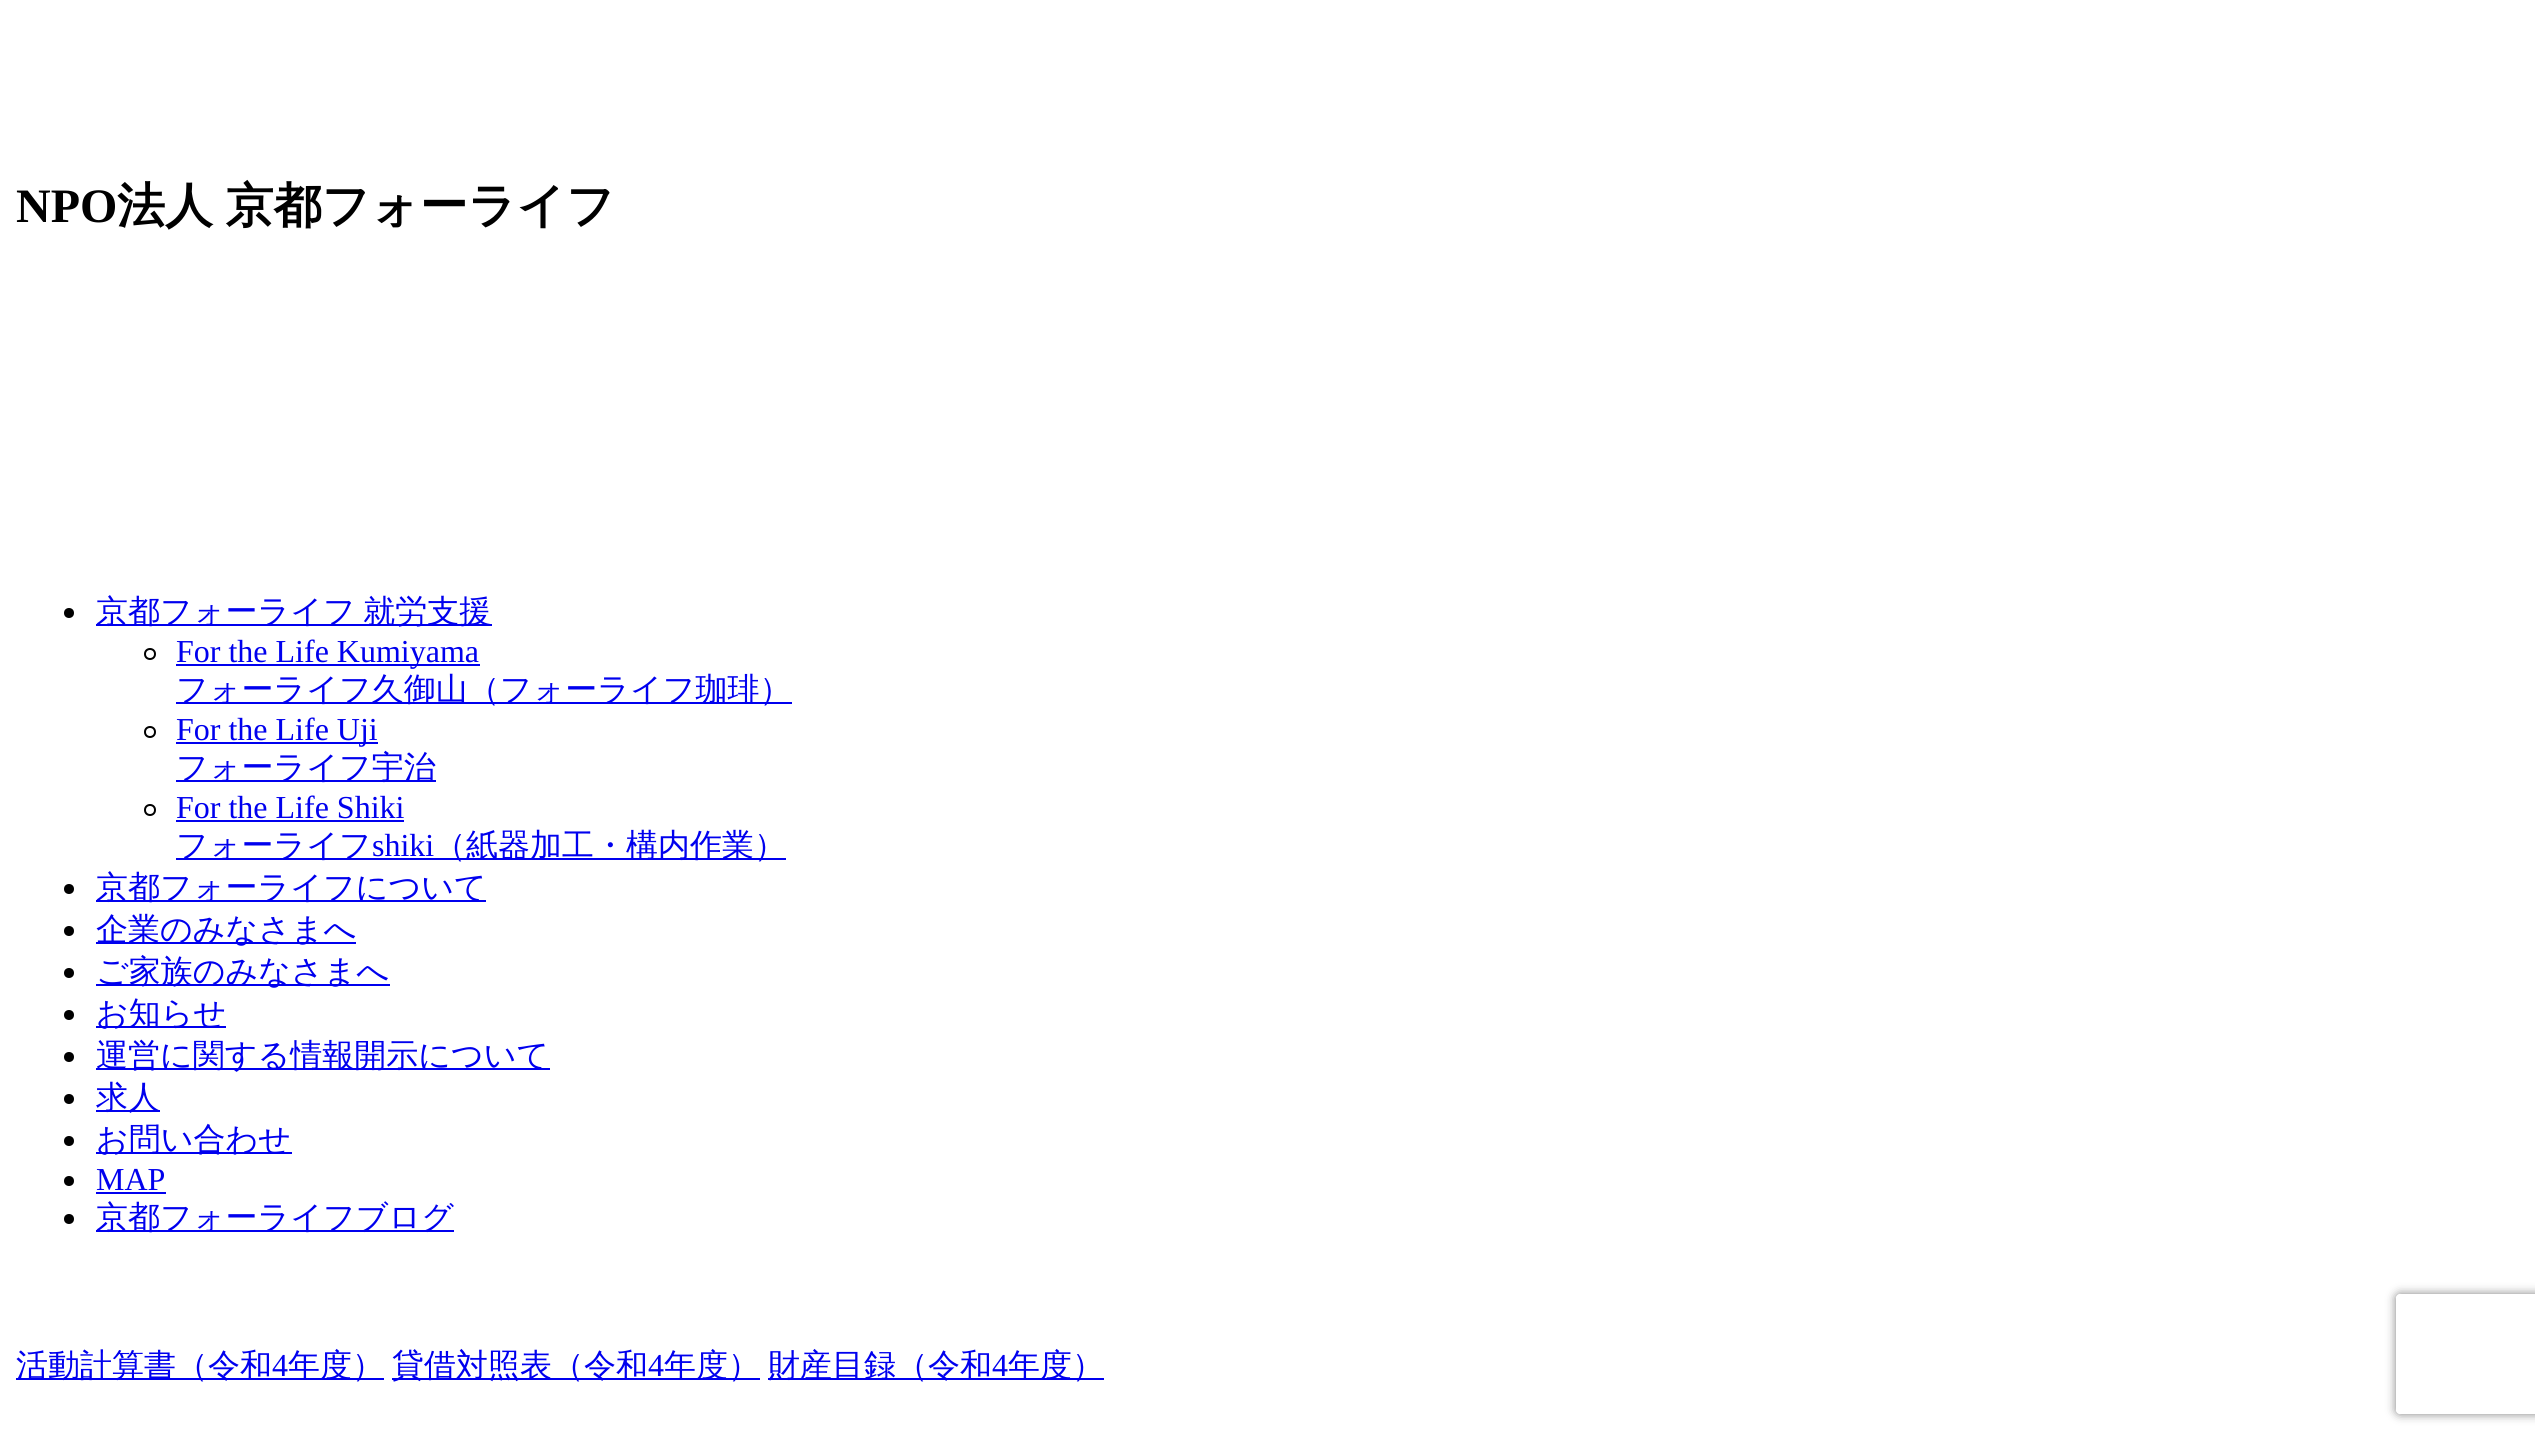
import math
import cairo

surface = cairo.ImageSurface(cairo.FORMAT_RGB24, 2535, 1442)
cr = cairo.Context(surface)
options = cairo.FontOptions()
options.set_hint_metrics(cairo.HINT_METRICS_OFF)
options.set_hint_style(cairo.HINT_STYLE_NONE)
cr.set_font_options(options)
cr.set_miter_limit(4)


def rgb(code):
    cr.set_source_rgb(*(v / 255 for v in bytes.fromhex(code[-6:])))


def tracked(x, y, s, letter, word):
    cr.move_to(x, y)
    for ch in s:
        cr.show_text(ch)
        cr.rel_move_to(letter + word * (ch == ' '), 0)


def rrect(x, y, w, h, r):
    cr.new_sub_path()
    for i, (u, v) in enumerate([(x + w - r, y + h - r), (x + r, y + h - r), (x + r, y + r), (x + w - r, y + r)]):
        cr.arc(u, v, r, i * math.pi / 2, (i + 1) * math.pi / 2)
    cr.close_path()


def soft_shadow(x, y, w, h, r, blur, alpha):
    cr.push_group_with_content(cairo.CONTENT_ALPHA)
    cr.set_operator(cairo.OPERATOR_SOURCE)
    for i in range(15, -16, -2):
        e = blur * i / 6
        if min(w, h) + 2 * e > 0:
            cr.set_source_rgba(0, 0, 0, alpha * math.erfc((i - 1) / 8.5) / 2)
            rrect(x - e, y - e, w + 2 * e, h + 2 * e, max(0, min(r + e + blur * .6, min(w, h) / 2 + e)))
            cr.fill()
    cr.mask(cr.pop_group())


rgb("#ffffff")
cr.paint()
rgb("#000000")
cr.arc(69, 613, 5, 0, 2 * math.pi)
cr.fill()
rgb("#0000ee")
cr.rectangle(96, 624, 396, 2)
cr.fill()
cr.arc(150, 654, 5, 0, 2 * math.pi)
rgb("#000000")
cr.stroke()
rgb("#0000ee")
cr.rectangle(176, 664, 304, 2)
cr.fill()
cr.rectangle(176, 702, 616, 2)
cr.fill()
cr.arc(150, 732, 5, 0, 2 * math.pi)
rgb("#000000")
cr.stroke()
rgb("#0000ee")
cr.rectangle(176, 742, 202, 2)
cr.fill()
cr.rectangle(176, 780, 260, 2)
cr.fill()
cr.arc(150, 810, 5, 0, 2 * math.pi)
rgb("#000000")
cr.stroke()
rgb("#0000ee")
cr.rectangle(176, 820, 228, 2)
cr.fill()
cr.rectangle(176, 858, 610, 2)
cr.fill()
rgb("#000000")
cr.arc(69, 889, 5, 0, 2 * math.pi)
cr.fill()
rgb("#0000ee")
cr.rectangle(96, 900, 390, 2)
cr.fill()
rgb("#000000")
cr.arc(69, 931, 5, 0, 2 * math.pi)
cr.fill()
rgb("#0000ee")
cr.rectangle(96, 942, 260, 2)
cr.fill()
rgb("#000000")
cr.arc(69, 973, 5, 0, 2 * math.pi)
cr.fill()
rgb("#0000ee")
cr.rectangle(96, 984, 294, 2)
cr.fill()
rgb("#000000")
cr.arc(69, 1015, 5, 0, 2 * math.pi)
cr.fill()
rgb("#0000ee")
cr.rectangle(96, 1026, 130, 2)
cr.fill()
rgb("#000000")
cr.arc(69, 1057, 5, 0, 2 * math.pi)
cr.fill()
rgb("#0000ee")
cr.rectangle(96, 1068, 454, 2)
cr.fill()
rgb("#000000")
cr.arc(69, 1099, 5, 0, 2 * math.pi)
cr.fill()
rgb("#0000ee")
cr.rectangle(96, 1110, 64, 2)
cr.fill()
rgb("#000000")
cr.arc(69, 1141, 5, 0, 2 * math.pi)
cr.fill()
rgb("#0000ee")
cr.rectangle(96, 1152, 196, 2)
cr.fill()
rgb("#000000")
cr.arc(69, 1181, 5, 0, 2 * math.pi)
cr.fill()
rgb("#0000ee")
cr.rectangle(96, 1192, 70, 2)
cr.fill()
rgb("#000000")
cr.arc(69, 1219, 5, 0, 2 * math.pi)
cr.fill()
for x, y, w, h, color in [
    (96, 1230, 358, 2, "#0000ee"),
    (16, 1378, 368, 2, "#0000ee"),
    (392, 1378, 368, 2, "#0000ee"),
    (768, 1378, 336, 2, "#0000ee"),
]:
    rgb(color)
    cr.rectangle(x, y, w, h)
    cr.fill()
cr.save()
cr.set_fill_rule(cairo.FILL_RULE_EVEN_ODD)
cr.new_path()
cr.move_to(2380, 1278)
cr.line_to(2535, 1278)
cr.line_to(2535, 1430)
cr.line_to(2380, 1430)
cr.close_path()
cr.move_to(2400, 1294)
cr.line_to(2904, 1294)
cr.curve_to(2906, 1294, 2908, 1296, 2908, 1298)
cr.line_to(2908, 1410)
cr.curve_to(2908, 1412, 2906, 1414, 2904, 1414)
cr.line_to(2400, 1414)
cr.curve_to(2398, 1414, 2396, 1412, 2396, 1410)
cr.line_to(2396, 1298)
cr.curve_to(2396, 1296, 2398, 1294, 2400, 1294)
cr.close_path()
cr.clip()
rgb("#808080")
soft_shadow(2396, 1294, 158, 120, 4, 5, 1)
cr.restore()
cr.select_font_face("Liberation Serif", cairo.FONT_SLANT_NORMAL, cairo.FONT_WEIGHT_BOLD)
cr.set_font_size(48)
rgb("#000000")
cr.move_to(16, 222)
cr.show_text("NPO")
cr.select_font_face("WenQuanYi Zen Hei", cairo.FONT_SLANT_NORMAL, cairo.FONT_WEIGHT_BOLD)
tracked(117, 222, "法人 京都フォーライフ", 0, -2)
cr.select_font_face("WenQuanYi Zen Hei Medium")
cr.set_font_size(32)
rgb("#0000ee")
tracked(96, 622, "京都フォーライフ 就労支援", 0, -2)
cr.select_font_face("Liberation Serif")
cr.move_to(176, 662)
cr.show_text("For the Life Kumiyama")
cr.select_font_face("WenQuanYi Zen Hei Medium")
cr.move_to(176, 700)
cr.show_text("フォーライフ久御山（フォーライフ珈琲）")
cr.select_font_face("Liberation Serif")
cr.move_to(176, 740)
cr.show_text("For the Life Uji")
cr.select_font_face("WenQuanYi Zen Hei Medium")
cr.move_to(176, 778)
cr.show_text("フォーライフ宇治")
cr.select_font_face("Liberation Serif")
cr.move_to(176, 818)
cr.show_text("For the Life Shiki")
cr.select_font_face("WenQuanYi Zen Hei Medium")
cr.move_to(176, 856)
cr.show_text("フォーライフ")
cr.select_font_face("Liberation Serif")
cr.move_to(372, 856)
cr.show_text("shiki")
cr.select_font_face("WenQuanYi Zen Hei Medium")
for x, y, s in [
    (434, 856, "（紙器加工・構内作業）"),
    (96, 898, "京都フォーライフについて"),
    (96, 940, "企業のみなさまへ"),
    (96, 982, "ご家族のみなさまへ"),
    (96, 1024, "お知らせ"),
    (96, 1066, "運営に関する情報開示について"),
    (96, 1108, "求人"),
    (96, 1150, "お問い合わせ"),
]:
    cr.move_to(x, y)
    cr.show_text(s)
cr.select_font_face("Liberation Serif")
cr.move_to(96, 1190)
cr.show_text("MAP")
cr.select_font_face("WenQuanYi Zen Hei Medium")
cr.move_to(96, 1228)
cr.show_text("京都フォーライフブログ")
cr.move_to(16, 1376)
cr.show_text("活動計算書（令和")
cr.select_font_face("Liberation Serif")
cr.move_to(272, 1376)
cr.show_text("4")
cr.select_font_face("WenQuanYi Zen Hei Medium")
cr.move_to(288, 1376)
cr.show_text("年度）")
cr.move_to(392, 1376)
cr.show_text("貸借対照表（令和")
cr.select_font_face("Liberation Serif")
cr.move_to(648, 1376)
cr.show_text("4")
cr.select_font_face("WenQuanYi Zen Hei Medium")
cr.move_to(664, 1376)
cr.show_text("年度）")
cr.move_to(768, 1376)
cr.show_text("財産目録（令和")
cr.select_font_face("Liberation Serif")
cr.move_to(992, 1376)
cr.show_text("4")
cr.select_font_face("WenQuanYi Zen Hei Medium")
cr.move_to(1008, 1376)
cr.show_text("年度）")
surface.write_to_png("page.png")
